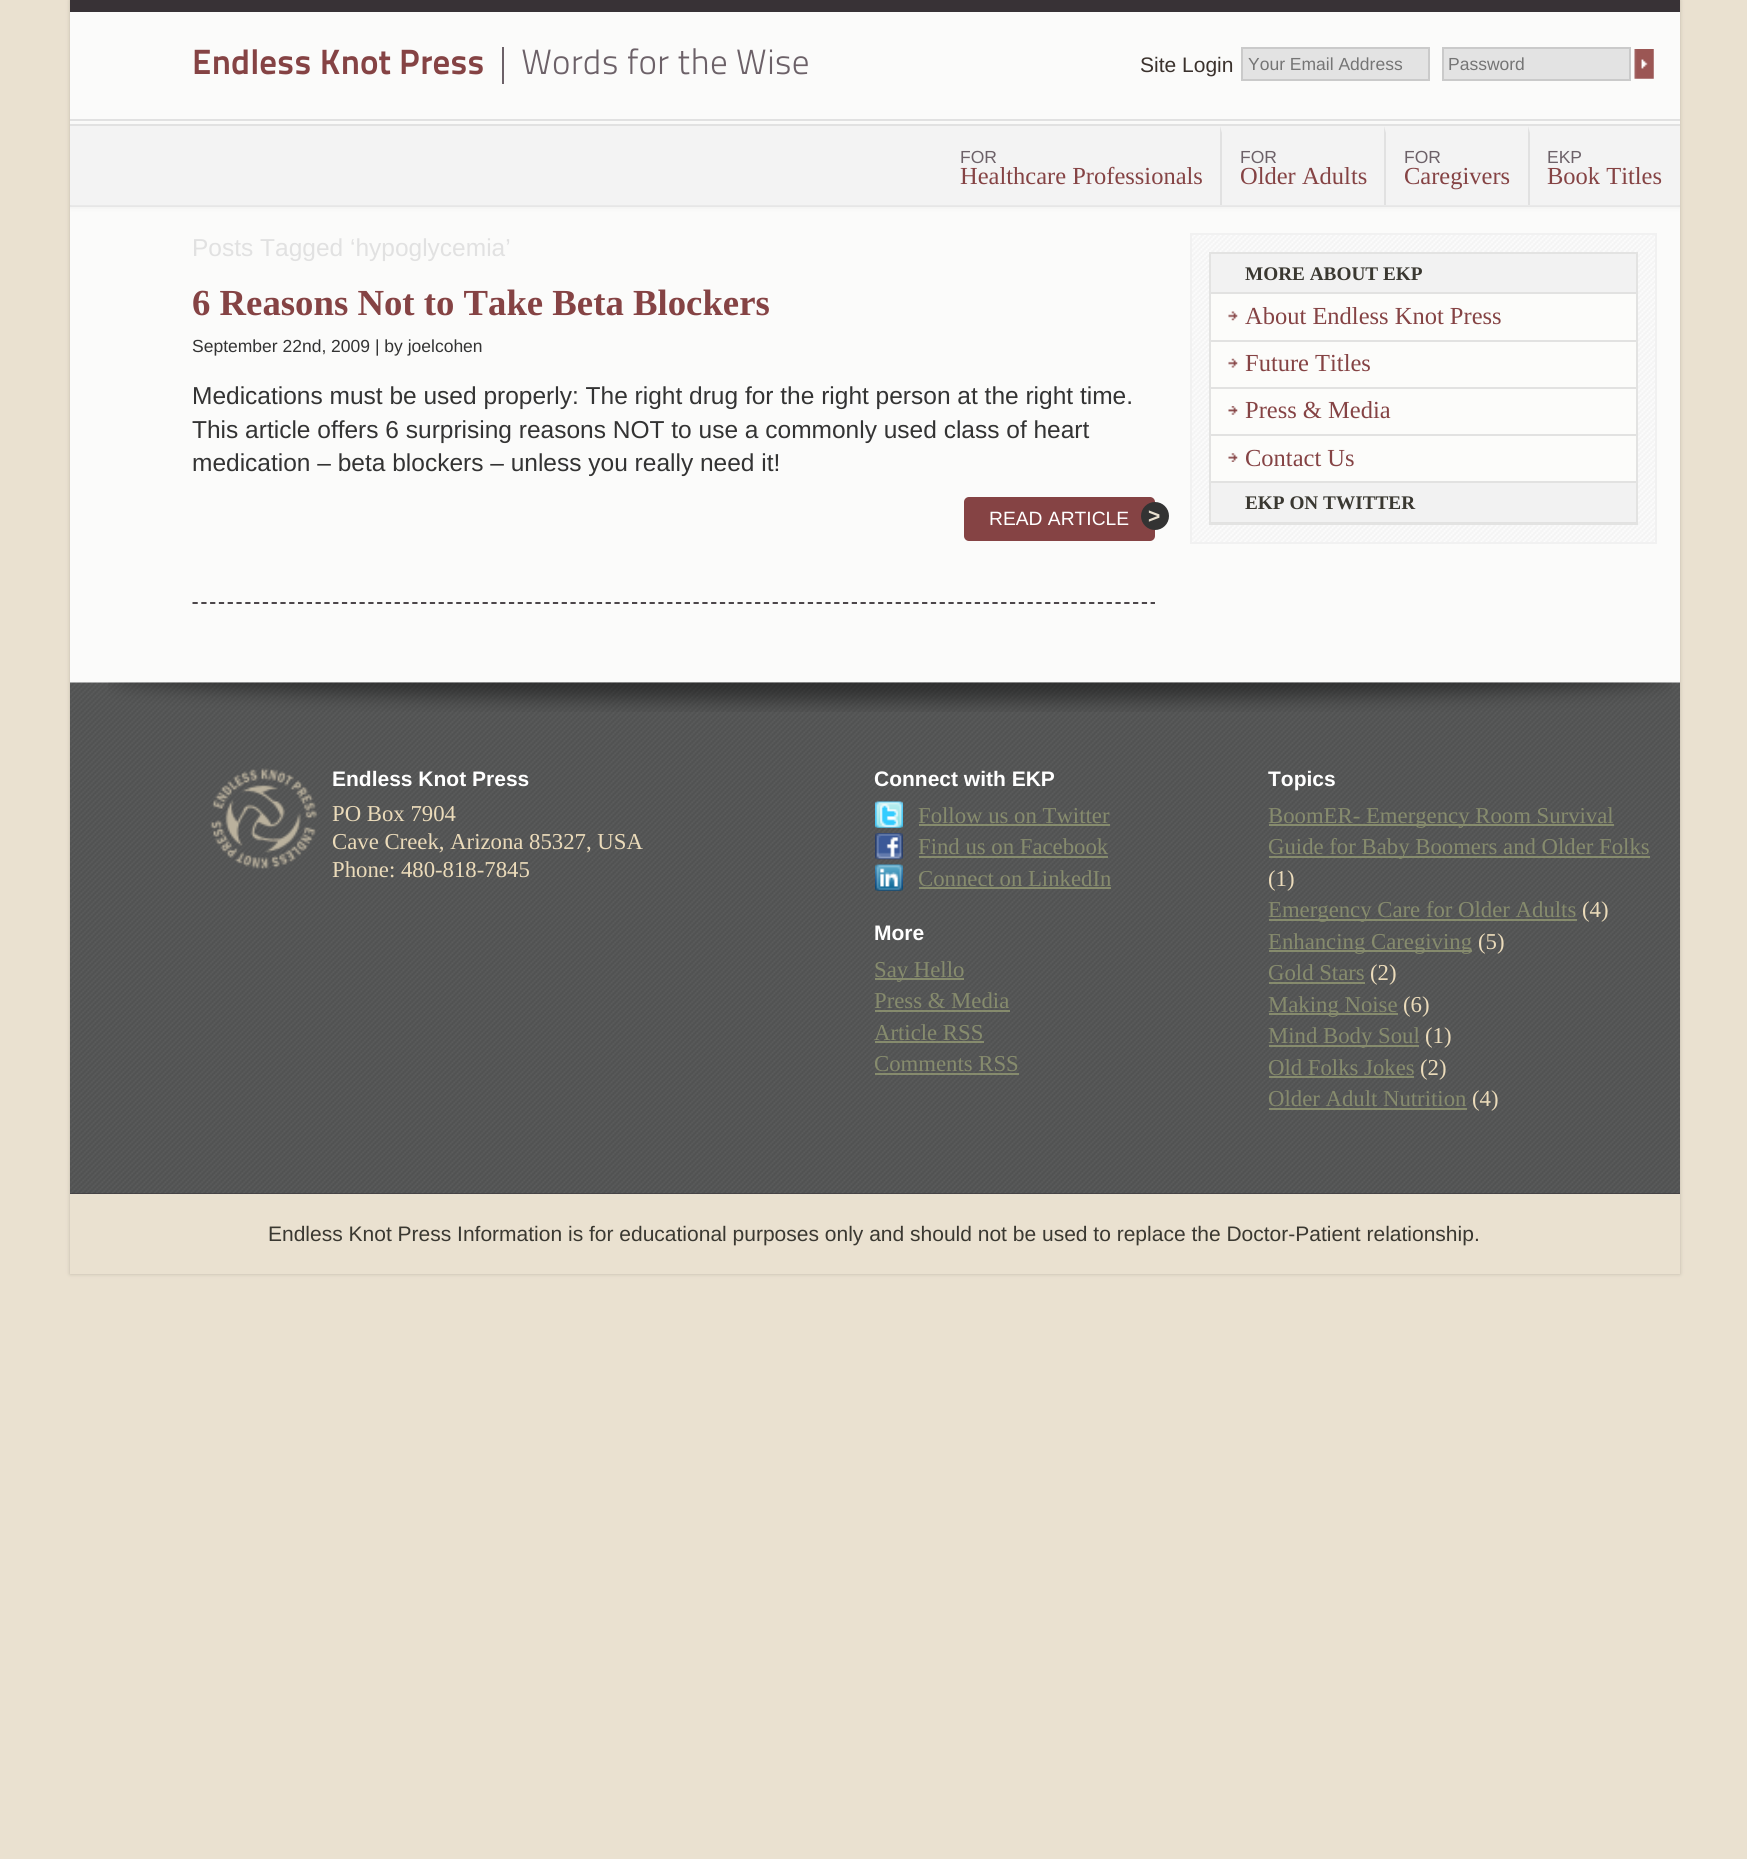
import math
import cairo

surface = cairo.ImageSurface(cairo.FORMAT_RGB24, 1747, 1859)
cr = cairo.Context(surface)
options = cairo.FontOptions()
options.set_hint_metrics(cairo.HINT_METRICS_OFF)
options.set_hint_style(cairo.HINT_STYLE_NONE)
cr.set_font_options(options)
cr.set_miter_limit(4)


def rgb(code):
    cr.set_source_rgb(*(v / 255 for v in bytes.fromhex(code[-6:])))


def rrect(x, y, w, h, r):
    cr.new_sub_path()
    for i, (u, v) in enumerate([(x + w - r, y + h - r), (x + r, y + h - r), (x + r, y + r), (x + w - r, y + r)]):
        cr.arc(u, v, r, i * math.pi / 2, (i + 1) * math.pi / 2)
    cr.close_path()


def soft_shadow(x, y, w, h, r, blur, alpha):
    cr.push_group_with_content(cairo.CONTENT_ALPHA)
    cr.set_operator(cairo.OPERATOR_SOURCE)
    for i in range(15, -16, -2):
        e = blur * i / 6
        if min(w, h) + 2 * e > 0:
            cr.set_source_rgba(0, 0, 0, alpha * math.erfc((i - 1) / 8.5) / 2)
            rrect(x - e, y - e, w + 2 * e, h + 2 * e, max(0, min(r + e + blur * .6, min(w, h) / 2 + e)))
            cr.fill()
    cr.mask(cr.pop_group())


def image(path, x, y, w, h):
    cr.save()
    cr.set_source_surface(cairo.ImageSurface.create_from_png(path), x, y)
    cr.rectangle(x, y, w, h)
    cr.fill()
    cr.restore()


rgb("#eae1d0")
cr.paint()
cr.save()
cr.set_fill_rule(cairo.FILL_RULE_EVEN_ODD)
cr.new_path()
cr.move_to(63, 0)
cr.line_to(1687, 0)
cr.line_to(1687, 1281)
cr.line_to(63, 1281)
cr.close_path()
cr.move_to(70, 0)
cr.line_to(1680, 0)
cr.line_to(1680, 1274)
cr.line_to(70, 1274)
cr.close_path()
cr.clip()
rgb("#c1baaa")
soft_shadow(70, 0, 1610, 1274, 0, 2, 1)
cr.restore()
for x, y, w, h, color in [
    (70, 0, 1610, 12, "#383236"),
    (70, 12, 1610, 671, "#fbfbfa"),
    (70, 205, 1610, 2, "#e1e1e1"),
    (70, 119, 1610, 2, "#e1e1e1"),
    (502, 47, 2, 37, "#6c6168"),
]:
    rgb(color)
    cr.rectangle(x, y, w, h)
    cr.fill()
rgb("#e3e3e3")
cr.rectangle(1242, 48, 187, 32)
cr.fill_preserve()
rgb("#cacaca")
cr.stroke()
rgb("#e3e3e3")
cr.rectangle(1443, 48, 187, 32)
cr.fill_preserve()
rgb("#cacaca")
cr.stroke()
image("img/1.png", 1634, 49, 20, 30)
cr.save()
cr.rectangle(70, 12, 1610, 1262)
cr.clip()
rgb("#ebebeb")
soft_shadow(70, 126, 1610, 81, 0, 2.5, 1)
cr.restore()
rgb("#f3f3f3")
cr.rectangle(70, 126, 1610, 79)
cr.fill()
rgb("#e1e1e1")
cr.rectangle(70, 124, 1610, 2)
cr.fill()
cr.new_path()
cr.move_to(1220, 205)
cr.line_to(1220, 126)
cr.line_to(1222, 133)
cr.line_to(1222, 205)
cr.close_path()
cr.fill()
cr.new_path()
cr.move_to(1384, 205)
cr.line_to(1384, 126)
cr.line_to(1386, 133)
cr.line_to(1386, 205)
cr.close_path()
cr.fill()
cr.new_path()
cr.move_to(1528, 205)
cr.line_to(1528, 126)
cr.line_to(1530, 133)
cr.line_to(1530, 205)
cr.close_path()
cr.fill()
cr.new_path()
cr.move_to(192.5, 603)
cr.line_to(1155, 603)
rgb("#383236")
cr.set_line_width(1.8)
cr.set_dash([5.25, 3.54])
cr.stroke()
rgb("#854344")
rrect(964, 497, 191, 44, 5)
cr.fill()
rgb("#333333")
cr.arc(1155, 516, 14, 0, 2 * math.pi)
cr.fill()
image("img/2.png", 1192, 235, 463, 307)
cr.rectangle(1191, 234, 465, 309)
rgb("#f1f1f1")
cr.set_line_width(2)
cr.set_dash([])
cr.stroke()
rgb("#fcfcfa")
cr.rectangle(1211, 294, 425, 187)
cr.fill()
cr.rectangle(1210, 253, 427, 271)
rgb("#e3e3e2")
cr.stroke()
for x, y, w, h, color in [
    (1211, 254, 425, 38, "#f2f2f2"),
    (1211, 292, 425, 2, "#e2e2e1"),
    (1211, 340, 425, 2, "#e2e2e1"),
]:
    rgb(color)
    cr.rectangle(x, y, w, h)
    cr.fill()
image("img/3.png", 1228, 311, 10, 10)
cr.rectangle(1211, 387, 425, 2)
cr.fill()
image("img/4.png", 1228, 358, 10, 10)
cr.rectangle(1211, 434, 425, 2)
cr.fill()
image("img/5.png", 1228, 406, 10, 9)
cr.rectangle(1211, 481, 425, 2)
cr.fill()
image("img/6.png", 1228, 453, 10, 9)
for x, y, w, h, color in [
    (1211, 483, 425, 39, "#f2f2f2"),
    (1211, 522, 425, 1, "#e2e2e1"),
    (70, 1193, 1610, 1, "#383236"),
]:
    rgb(color)
    cr.rectangle(x, y, w, h)
    cr.fill()
image("img/7.png", 70, 682, 1610, 512)
image("img/8.png", 108, 682, 1564, 30)
image("img/9.png", 210, 768, 107, 101)
image("img/10.png", 875, 801, 28, 27)
rgb("#868b6d")
cr.rectangle(919, 824, 191, 2)
cr.fill()
image("img/11.png", 875, 833, 28, 27)
cr.rectangle(919, 856, 189, 2)
cr.fill()
image("img/12.png", 875, 864, 28, 27)
for x, y, w, h, color in [
    (919, 887, 192, 2, "#868b6d"),
    (875, 978, 89, 2, "#868b6d"),
    (875, 1010, 135, 2, "#868b6d"),
    (875, 1041, 109, 2, "#868b6d"),
    (875, 1073, 144, 2, "#868b6d"),
    (1269, 824, 345, 2, "#868b6d"),
    (1269, 856, 381, 2, "#868b6d"),
    (1269, 919, 308, 2, "#868b6d"),
    (1269, 950, 203, 2, "#868b6d"),
    (1269, 982, 96, 2, "#868b6d"),
    (1269, 1013, 129, 2, "#868b6d"),
    (1269, 1045, 150, 2, "#868b6d"),
    (1269, 1076, 145, 2, "#868b6d"),
    (1269, 1108, 198, 2, "#868b6d"),
]:
    rgb(color)
    cr.rectangle(x, y, w, h)
    cr.fill()
cr.select_font_face("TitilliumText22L", cairo.FONT_SLANT_NORMAL, cairo.FONT_WEIGHT_BOLD)
cr.set_font_size(35)
rgb("#854344")
cr.move_to(192, 74)
cr.show_text("Endless Knot Press")
cr.select_font_face("TitilliumText22L Light")
rgb("#6c6168")
cr.move_to(521, 74)
cr.show_text("Words for the Wise")
cr.select_font_face("Liberation Sans")
cr.set_font_size(21)
rgb("#3b322d")
cr.move_to(1140, 72)
cr.show_text("Site Login")
cr.set_font_size(17.5)
rgb("#757575")
cr.move_to(1248, 70)
cr.show_text("Your Email Address")
cr.move_to(1448, 70)
cr.show_text("Password")
rgb("#6c6168")
cr.move_to(960, 163)
cr.show_text("FOR")
cr.select_font_face("Liberation Serif")
cr.set_font_size(24.5)
rgb("#854344")
cr.move_to(960, 184)
cr.show_text("Healthcare Professionals")
cr.select_font_face("Liberation Sans")
cr.set_font_size(17.5)
rgb("#6c6168")
cr.move_to(1240, 163)
cr.show_text("FOR")
cr.select_font_face("Liberation Serif")
cr.set_font_size(24.5)
rgb("#854344")
cr.move_to(1240, 184)
cr.show_text("Older Adults")
cr.select_font_face("Liberation Sans")
cr.set_font_size(17.5)
rgb("#6c6168")
cr.move_to(1404, 163)
cr.show_text("FOR")
cr.select_font_face("Liberation Serif")
cr.set_font_size(24.5)
rgb("#854344")
cr.move_to(1404, 184)
cr.show_text("Caregivers")
cr.select_font_face("Liberation Sans")
cr.set_font_size(17.5)
rgb("#6c6168")
cr.move_to(1547, 163)
cr.show_text("EKP")
cr.select_font_face("Liberation Serif")
cr.set_font_size(24.5)
rgb("#854344")
cr.move_to(1547, 184)
cr.show_text("Book Titles")
cr.select_font_face("Liberation Sans")
rgb("#e1e1e1")
cr.move_to(192, 256)
cr.show_text("Posts Tagged ‘hypoglycemia’")
cr.select_font_face("Liberation Serif", cairo.FONT_SLANT_NORMAL, cairo.FONT_WEIGHT_BOLD)
cr.set_font_size(36.75)
rgb("#854344")
cr.move_to(192, 315)
cr.show_text("6 Reasons Not to Take Beta Blockers")
cr.select_font_face("Liberation Sans")
cr.set_font_size(17.5)
rgb("#333333")
cr.move_to(192, 352)
cr.show_text("September 22nd, 2009 | by joelcohen")
cr.set_font_size(24.5)
for x, y, s in [
    (192, 404, "Medications must be used properly: The right drug for the right person at the right time."),
    (192, 438, "This article offers 6 surprising reasons NOT to use a commonly used class of heart"),
    (192, 471, "medication – beta blockers – unless you really need it!"),
]:
    cr.move_to(x, y)
    cr.show_text(s)
cr.set_font_size(19.25)
rgb("#ffffff")
cr.move_to(989, 525)
cr.show_text("READ ARTICLE")
cr.select_font_face("Liberation Sans", cairo.FONT_SLANT_NORMAL, cairo.FONT_WEIGHT_BOLD)
cr.set_font_size(21)
rgb("#eae1d0")
cr.move_to(1148, 523)
cr.show_text(">")
cr.select_font_face("Liberation Serif", cairo.FONT_SLANT_NORMAL, cairo.FONT_WEIGHT_BOLD)
cr.set_font_size(19.25)
rgb("#3a3831")
cr.move_to(1245, 280)
cr.show_text("MORE ABOUT EKP")
cr.select_font_face("Liberation Serif")
cr.set_font_size(24.5)
rgb("#854344")
for x, y, s in [
    (1245, 324, "About Endless Knot Press"),
    (1245, 371, "Future Titles"),
    (1245, 418, "Press & Media"),
    (1245, 466, "Contact Us"),
]:
    cr.move_to(x, y)
    cr.show_text(s)
cr.select_font_face("Liberation Serif", cairo.FONT_SLANT_NORMAL, cairo.FONT_WEIGHT_BOLD)
cr.set_font_size(19.25)
rgb("#3a3831")
cr.move_to(1245, 509)
cr.show_text("EKP ON TWITTER")
cr.select_font_face("Liberation Sans", cairo.FONT_SLANT_NORMAL, cairo.FONT_WEIGHT_BOLD)
cr.set_font_size(21)
rgb("#ffffff")
cr.move_to(332, 786)
cr.show_text("Endless Knot Press")
cr.select_font_face("Liberation Serif")
cr.set_font_size(22.75)
rgb("#ebdbba")
for x, y, s in [
    (332, 821, "PO Box 7904"),
    (332, 849, "Cave Creek, Arizona 85327, USA"),
    (332, 877, "Phone: 480-818-7845"),
]:
    cr.move_to(x, y)
    cr.show_text(s)
cr.select_font_face("Liberation Sans", cairo.FONT_SLANT_NORMAL, cairo.FONT_WEIGHT_BOLD)
cr.set_font_size(21)
rgb("#ffffff")
cr.move_to(874, 786)
cr.show_text("Connect with EKP")
cr.select_font_face("Liberation Serif")
cr.set_font_size(22.75)
rgb("#868b6d")
for x, y, s in [
    (918, 823, "Follow us on Twitter"),
    (918, 854, "Find us on Facebook"),
    (918, 886, "Connect on LinkedIn"),
]:
    cr.move_to(x, y)
    cr.show_text(s)
cr.select_font_face("Liberation Sans", cairo.FONT_SLANT_NORMAL, cairo.FONT_WEIGHT_BOLD)
cr.set_font_size(21)
rgb("#ffffff")
cr.move_to(874, 940)
cr.show_text("More")
cr.select_font_face("Liberation Serif")
cr.set_font_size(22.75)
rgb("#868b6d")
for x, y, s in [
    (874, 977, "Say Hello"),
    (874, 1008, "Press & Media"),
    (874, 1040, "Article RSS"),
    (874, 1071, "Comments RSS"),
]:
    cr.move_to(x, y)
    cr.show_text(s)
cr.select_font_face("Liberation Sans", cairo.FONT_SLANT_NORMAL, cairo.FONT_WEIGHT_BOLD)
cr.set_font_size(21)
rgb("#ffffff")
cr.move_to(1268, 786)
cr.show_text("Topics")
cr.select_font_face("Liberation Serif")
cr.set_font_size(22.75)
rgb("#868b6d")
cr.move_to(1268, 823)
cr.show_text("BoomER- Emergency Room Survival")
cr.move_to(1268, 854)
cr.show_text("Guide for Baby Boomers and Older Folks")
rgb("#ebdbba")
cr.move_to(1268, 886)
cr.show_text("(1)")
rgb("#868b6d")
cr.move_to(1268, 917)
cr.show_text("Emergency Care for Older Adults")
rgb("#ebdbba")
cr.move_to(1582, 917)
cr.show_text("(4)")
rgb("#868b6d")
cr.move_to(1268, 949)
cr.show_text("Enhancing Caregiving")
rgb("#ebdbba")
cr.move_to(1478, 949)
cr.show_text("(5)")
rgb("#868b6d")
cr.move_to(1268, 980)
cr.show_text("Gold Stars")
rgb("#ebdbba")
cr.move_to(1370, 980)
cr.show_text("(2)")
rgb("#868b6d")
cr.move_to(1268, 1012)
cr.show_text("Making Noise")
rgb("#ebdbba")
cr.move_to(1403, 1012)
cr.show_text("(6)")
rgb("#868b6d")
cr.move_to(1268, 1043)
cr.show_text("Mind Body Soul")
rgb("#ebdbba")
cr.move_to(1425, 1043)
cr.show_text("(1)")
rgb("#868b6d")
cr.move_to(1268, 1075)
cr.show_text("Old Folks Jokes")
rgb("#ebdbba")
cr.move_to(1420, 1075)
cr.show_text("(2)")
rgb("#868b6d")
cr.move_to(1268, 1106)
cr.show_text("Older Adult Nutrition")
rgb("#ebdbba")
cr.move_to(1472, 1106)
cr.show_text("(4)")
cr.select_font_face("Liberation Sans")
cr.set_font_size(21)
rgb("#3a3831")
cr.move_to(268, 1241)
cr.show_text("Endless Knot Press Information is for educational purposes only and should not be used to replace the Doctor-Patient relationship.")
surface.write_to_png("page.png")
